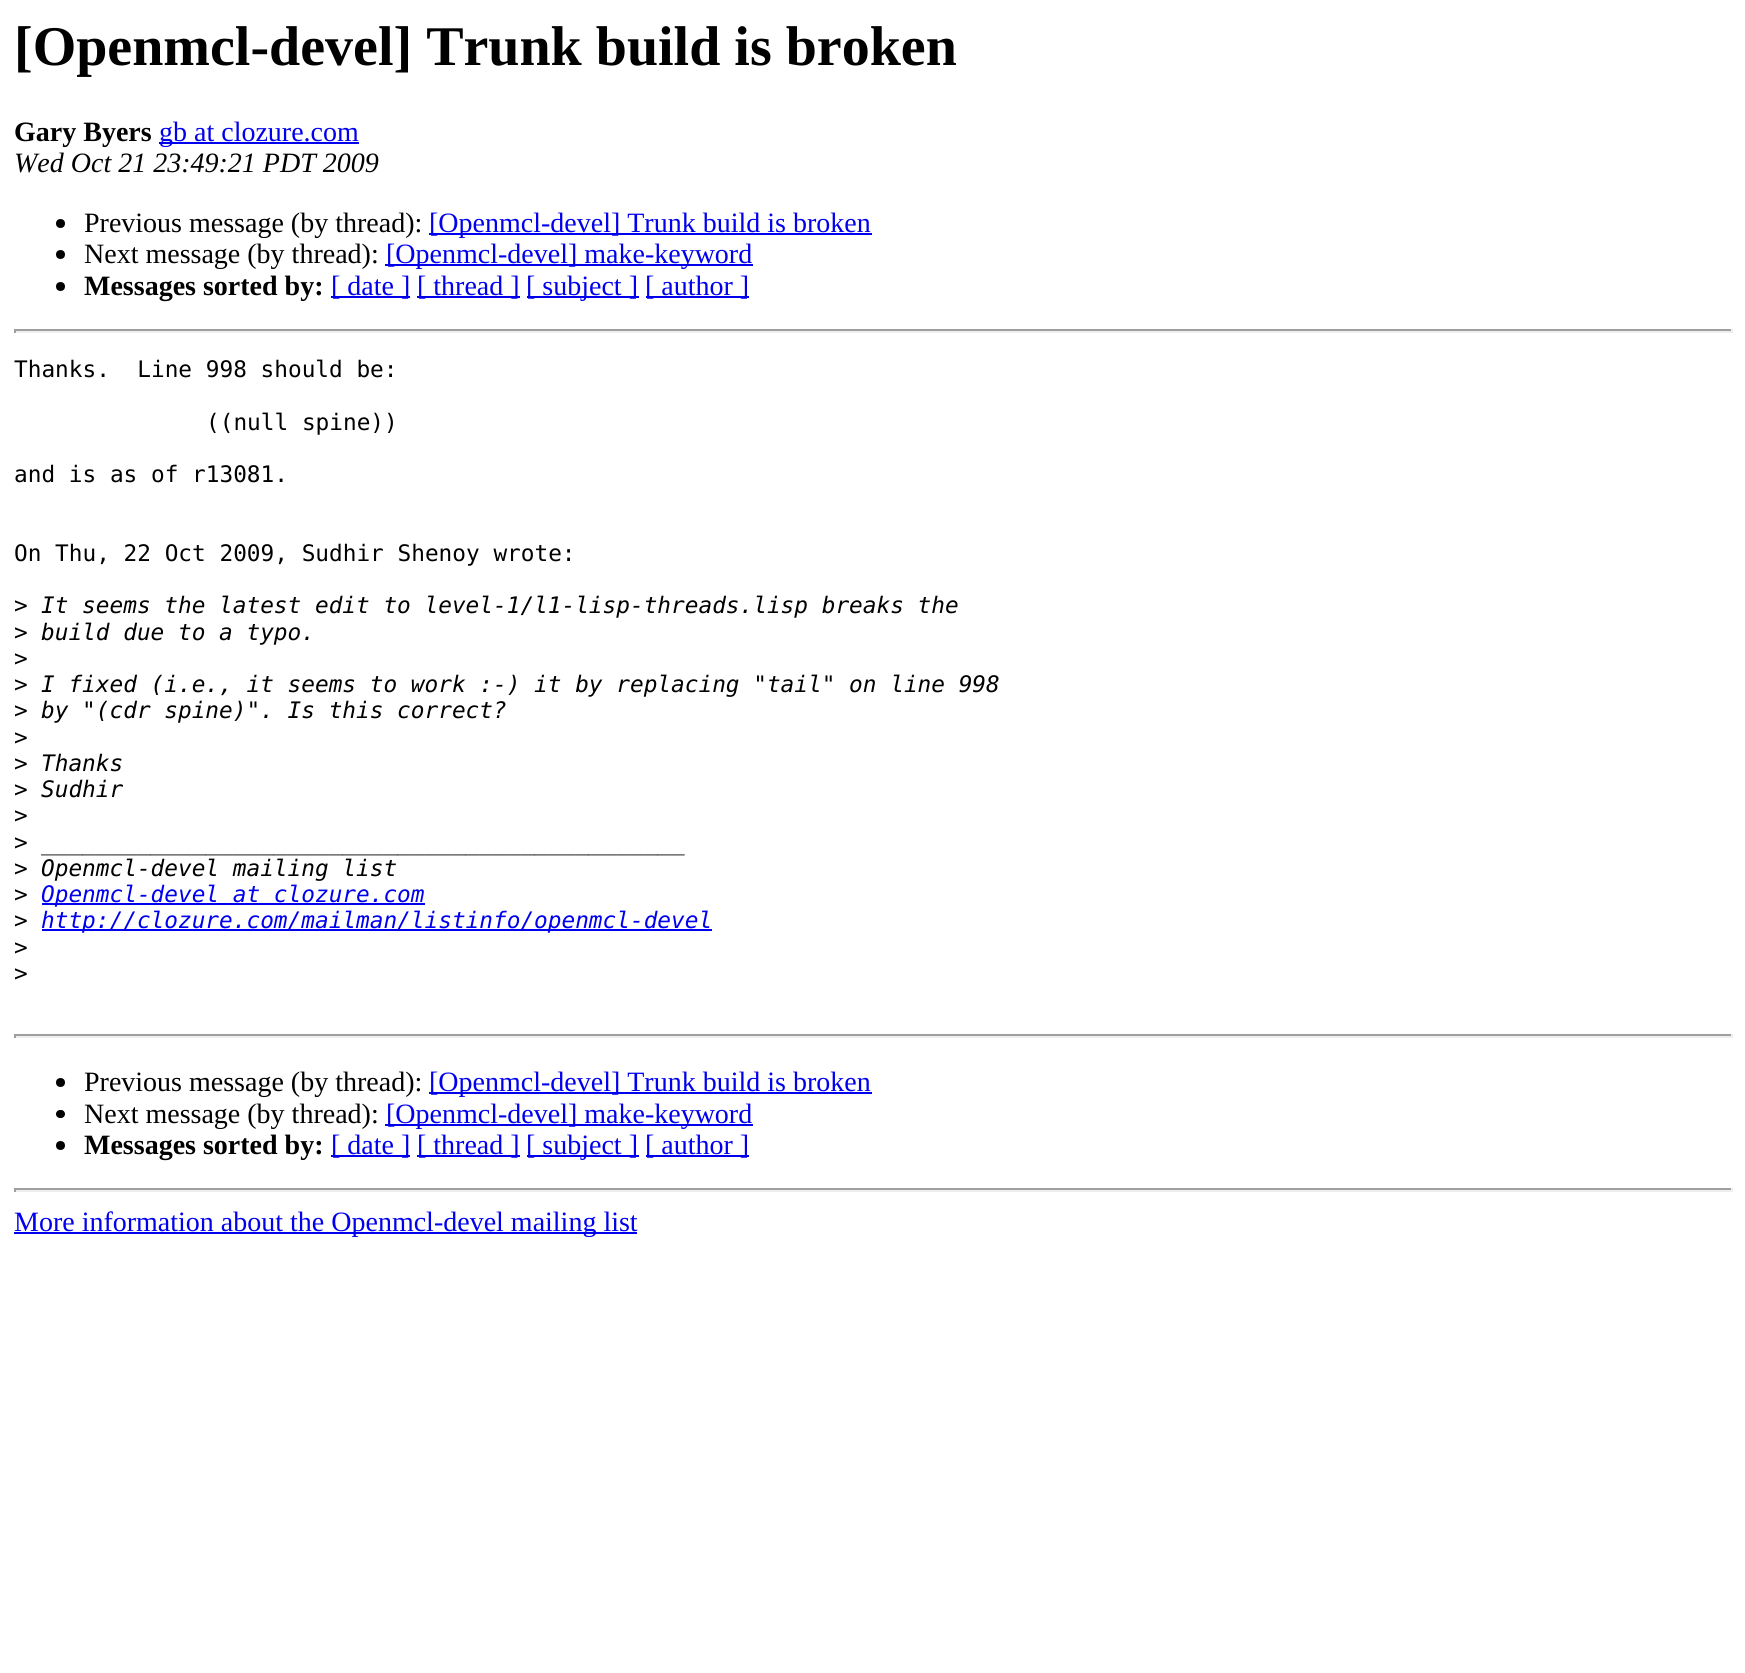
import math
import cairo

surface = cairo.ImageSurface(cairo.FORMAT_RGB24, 1745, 1673)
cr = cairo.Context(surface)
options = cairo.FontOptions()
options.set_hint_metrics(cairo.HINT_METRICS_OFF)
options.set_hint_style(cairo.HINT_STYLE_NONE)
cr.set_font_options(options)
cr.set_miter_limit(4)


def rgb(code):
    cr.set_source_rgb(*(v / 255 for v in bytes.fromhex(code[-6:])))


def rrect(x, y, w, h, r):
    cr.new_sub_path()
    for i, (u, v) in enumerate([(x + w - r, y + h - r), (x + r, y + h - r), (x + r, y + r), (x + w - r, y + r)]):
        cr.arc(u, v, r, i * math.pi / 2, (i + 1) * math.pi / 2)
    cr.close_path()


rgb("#ffffff")
cr.paint()
rgb("#0000ee")
cr.rectangle(159, 142, 200, 2)
cr.fill()
rgb("#000000")
cr.arc(60.5, 223.5, 4.5, 0, 2 * math.pi)
cr.fill()
rgb("#0000ee")
cr.rectangle(429, 233, 443, 2)
cr.fill()
rgb("#000000")
cr.arc(60.5, 254.5, 4.5, 0, 2 * math.pi)
cr.fill()
rgb("#0000ee")
cr.rectangle(385, 264, 368, 2)
cr.fill()
rgb("#000000")
cr.arc(60.5, 286.5, 4.5, 0, 2 * math.pi)
cr.fill()
for x, y, w, h, color in [
    (331, 296, 79, 2, "#0000ee"),
    (417, 296, 103, 2, "#0000ee"),
    (527, 296, 112, 2, "#0000ee"),
    (646, 296, 103, 2, "#0000ee"),
    (14, 329, 1719, 2, "#9f9f9f"),
    (1731, 329, 2, 4, "#eeeeee"),
    (14, 331, 1719, 2, "#eeeeee"),
    (14, 329, 2, 4, "#9f9f9f"),
    (42, 903, 383, 2, "#0000ee"),
    (42, 929, 670, 2, "#0000ee"),
    (14, 1034, 1719, 2, "#9f9f9f"),
    (1731, 1034, 2, 4, "#eeeeee"),
    (14, 1036, 1719, 2, "#eeeeee"),
    (14, 1034, 2, 4, "#9f9f9f"),
]:
    rgb(color)
    cr.rectangle(x, y, w, h)
    cr.fill()
rgb("#000000")
cr.arc(60.5, 1082.5, 4.5, 0, 2 * math.pi)
cr.fill()
rgb("#0000ee")
cr.rectangle(429, 1092, 443, 2)
cr.fill()
rgb("#000000")
rrect(56, 1110, 9, 8, 4)
cr.fill()
rgb("#0000ee")
cr.rectangle(385, 1124, 368, 2)
cr.fill()
rgb("#000000")
cr.arc(60.5, 1145.5, 4.5, 0, 2 * math.pi)
cr.fill()
for x, y, w, h, color in [
    (331, 1155, 79, 2, "#0000ee"),
    (417, 1155, 103, 2, "#0000ee"),
    (527, 1155, 112, 2, "#0000ee"),
    (646, 1155, 103, 2, "#0000ee"),
    (14, 1188, 1719, 2, "#9f9f9f"),
    (1731, 1188, 2, 4, "#eeeeee"),
    (14, 1190, 1719, 2, "#eeeeee"),
    (14, 1188, 2, 4, "#9f9f9f"),
    (14, 1232, 623, 2, "#0000ee"),
]:
    rgb(color)
    cr.rectangle(x, y, w, h)
    cr.fill()
cr.select_font_face("Liberation Serif", cairo.FONT_SLANT_NORMAL, cairo.FONT_WEIGHT_BOLD)
cr.set_font_size(56)
rgb("#000000")
cr.move_to(14, 65)
cr.show_text("[Openmcl-devel] Trunk build is broken")
cr.set_font_size(28)
cr.move_to(14, 141)
cr.show_text("Gary Byers")
cr.select_font_face("Liberation Serif")
rgb("#0000ee")
cr.move_to(159, 141)
cr.show_text("gb at clozure.com")
cr.select_font_face("Liberation Serif", cairo.FONT_SLANT_ITALIC)
rgb("#000000")
cr.move_to(14, 172)
cr.show_text("Wed Oct 21 23:49:21 PDT 2009")
cr.select_font_face("Liberation Serif")
cr.move_to(84, 232)
cr.show_text("Previous message (by thread):")
rgb("#0000ee")
cr.move_to(429, 232)
cr.show_text("[Openmcl-devel] Trunk build is broken")
rgb("#000000")
cr.move_to(84, 263)
cr.show_text("Next message (by thread):")
rgb("#0000ee")
cr.move_to(386, 263)
cr.show_text("[Openmcl-devel] make-keyword")
cr.select_font_face("Liberation Serif", cairo.FONT_SLANT_NORMAL, cairo.FONT_WEIGHT_BOLD)
rgb("#000000")
cr.move_to(84, 295)
cr.show_text("Messages sorted by:")
cr.select_font_face("Liberation Serif")
rgb("#0000ee")
for x, y, s in [
    (331, 295, "[ date ]"),
    (417, 295, "[ thread ]"),
    (526, 295, "[ subject ]"),
    (645, 295, "[ author ]"),
]:
    cr.move_to(x, y)
    cr.show_text(s)
cr.select_font_face("DejaVu Sans Mono")
cr.set_font_size(22.75)
rgb("#000000")
for x, y, s in [
    (14, 377, "Thanks.  Line 998 should be:"),
    (206, 430, "((null spine))"),
    (14, 482, "and is as of r13081."),
    (14, 561, "On Thu, 22 Oct 2009, Sudhir Shenoy wrote:"),
    (14, 613, ">"),
]:
    cr.move_to(x, y)
    cr.show_text(s)
cr.select_font_face("DejaVu Sans Mono", cairo.FONT_SLANT_ITALIC)
cr.move_to(41, 613)
cr.show_text("It seems the latest edit to level-1/l1-lisp-threads.lisp breaks the")
cr.select_font_face("DejaVu Sans Mono")
cr.move_to(14, 640)
cr.show_text(">")
cr.select_font_face("DejaVu Sans Mono", cairo.FONT_SLANT_ITALIC)
cr.move_to(41, 640)
cr.show_text("build due to a typo.")
cr.select_font_face("DejaVu Sans Mono")
cr.move_to(14, 666)
cr.show_text(">")
cr.move_to(14, 692)
cr.show_text(">")
cr.select_font_face("DejaVu Sans Mono", cairo.FONT_SLANT_ITALIC)
cr.move_to(41, 692)
cr.show_text("I fixed (i.e., it seems to work :-) it by replacing \"tail\" on line 998")
cr.select_font_face("DejaVu Sans Mono")
cr.move_to(14, 718)
cr.show_text(">")
cr.select_font_face("DejaVu Sans Mono", cairo.FONT_SLANT_ITALIC)
cr.move_to(41, 718)
cr.show_text("by \"(cdr spine)\". Is this correct?")
cr.select_font_face("DejaVu Sans Mono")
cr.move_to(14, 745)
cr.show_text(">")
cr.move_to(14, 771)
cr.show_text(">")
cr.select_font_face("DejaVu Sans Mono", cairo.FONT_SLANT_ITALIC)
cr.move_to(41, 771)
cr.show_text("Thanks")
cr.select_font_face("DejaVu Sans Mono")
cr.move_to(14, 797)
cr.show_text(">")
cr.select_font_face("DejaVu Sans Mono", cairo.FONT_SLANT_ITALIC)
cr.move_to(41, 797)
cr.show_text("Sudhir")
cr.select_font_face("DejaVu Sans Mono")
cr.move_to(14, 823)
cr.show_text(">")
cr.move_to(14, 850)
cr.show_text(">")
cr.select_font_face("DejaVu Sans Mono", cairo.FONT_SLANT_ITALIC)
cr.move_to(41, 850)
cr.show_text("_______________________________________________")
cr.select_font_face("DejaVu Sans Mono")
cr.move_to(14, 876)
cr.show_text(">")
cr.select_font_face("DejaVu Sans Mono", cairo.FONT_SLANT_ITALIC)
cr.move_to(41, 876)
cr.show_text("Openmcl-devel mailing list")
cr.select_font_face("DejaVu Sans Mono")
cr.move_to(14, 902)
cr.show_text(">")
cr.select_font_face("DejaVu Sans Mono", cairo.FONT_SLANT_ITALIC)
rgb("#0000ee")
cr.move_to(41, 902)
cr.show_text("Openmcl-devel at clozure.com")
cr.select_font_face("DejaVu Sans Mono")
rgb("#000000")
cr.move_to(14, 928)
cr.show_text(">")
cr.select_font_face("DejaVu Sans Mono", cairo.FONT_SLANT_ITALIC)
rgb("#0000ee")
cr.move_to(41, 928)
cr.show_text("http://clozure.com/mailman/listinfo/openmcl-devel")
cr.select_font_face("DejaVu Sans Mono")
rgb("#000000")
cr.move_to(14, 955)
cr.show_text(">")
cr.move_to(14, 981)
cr.show_text(">")
cr.select_font_face("Liberation Serif")
cr.set_font_size(28)
cr.move_to(84, 1091)
cr.show_text("Previous message (by thread):")
rgb("#0000ee")
cr.move_to(429, 1091)
cr.show_text("[Openmcl-devel] Trunk build is broken")
rgb("#000000")
cr.move_to(84, 1123)
cr.show_text("Next message (by thread):")
rgb("#0000ee")
cr.move_to(386, 1123)
cr.show_text("[Openmcl-devel] make-keyword")
cr.select_font_face("Liberation Serif", cairo.FONT_SLANT_NORMAL, cairo.FONT_WEIGHT_BOLD)
rgb("#000000")
cr.move_to(84, 1154)
cr.show_text("Messages sorted by:")
cr.select_font_face("Liberation Serif")
rgb("#0000ee")
for x, y, s in [
    (331, 1154, "[ date ]"),
    (417, 1154, "[ thread ]"),
    (526, 1154, "[ subject ]"),
    (645, 1154, "[ author ]"),
    (14, 1231, "More information about the Openmcl-devel mailing list"),
]:
    cr.move_to(x, y)
    cr.show_text(s)
surface.write_to_png("page.png")
